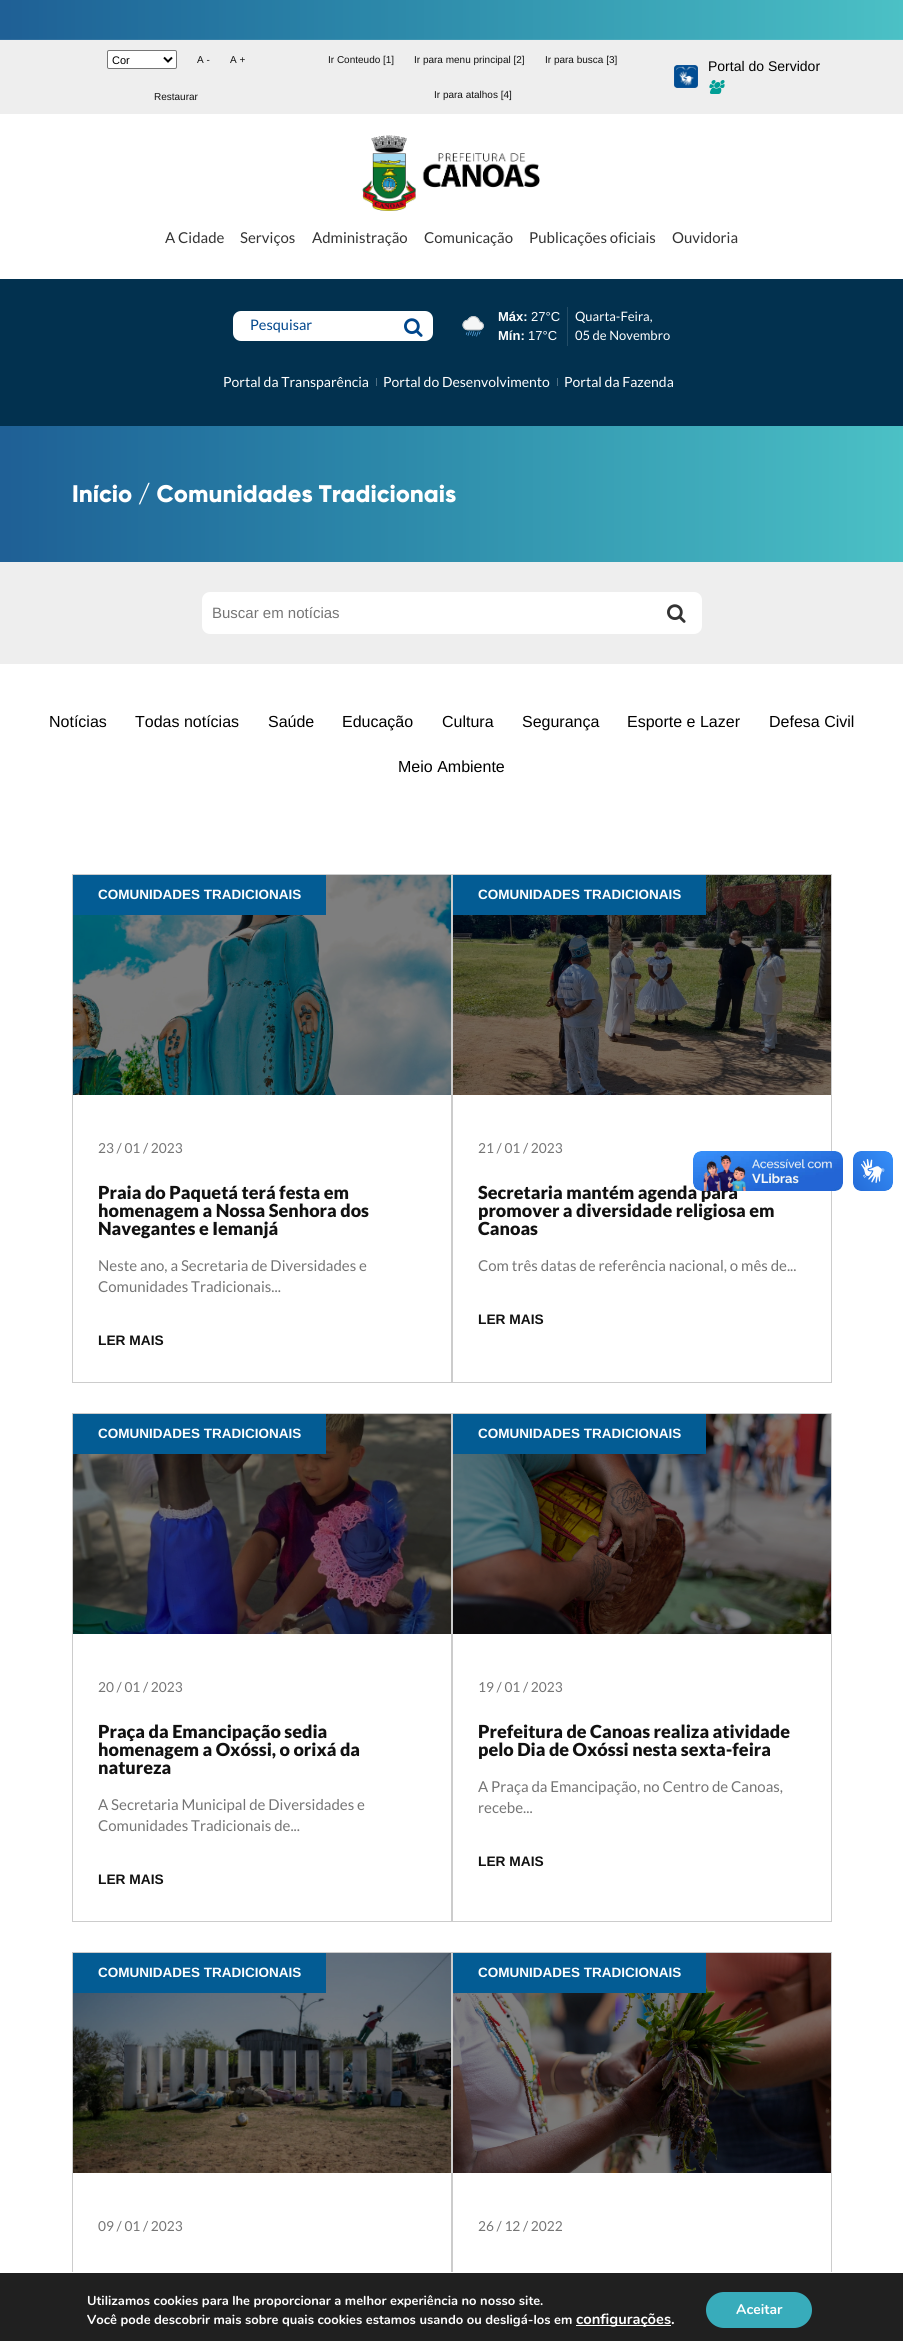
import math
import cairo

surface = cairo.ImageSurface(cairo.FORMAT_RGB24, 903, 2341)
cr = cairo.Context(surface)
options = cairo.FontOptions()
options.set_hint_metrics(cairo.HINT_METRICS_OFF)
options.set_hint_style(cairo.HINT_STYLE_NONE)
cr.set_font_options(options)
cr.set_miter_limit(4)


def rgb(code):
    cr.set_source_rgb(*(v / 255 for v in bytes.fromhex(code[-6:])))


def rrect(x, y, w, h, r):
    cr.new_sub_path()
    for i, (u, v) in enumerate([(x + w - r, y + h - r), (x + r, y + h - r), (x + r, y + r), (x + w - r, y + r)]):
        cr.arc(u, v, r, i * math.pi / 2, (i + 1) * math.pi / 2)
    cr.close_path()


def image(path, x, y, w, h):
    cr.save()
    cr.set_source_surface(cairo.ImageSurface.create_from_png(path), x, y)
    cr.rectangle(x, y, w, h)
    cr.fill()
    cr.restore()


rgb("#ffffff")
cr.paint()
image("img/1.png", 0, 0, 903, 40)
rgb("#eeeeee")
cr.rectangle(0, 40, 903, 74)
cr.fill()
rgb("#ffffff")
rrect(107.5, 50.5, 69, 18, 1.5)
cr.fill_preserve()
rgb("#767676")
cr.set_line_width(1)
cr.stroke()
cr.new_path()
cr.move_to(164, 57.5)
cr.line_to(168, 61.5)
cr.line_to(172, 57.5)
rgb("#000000")
cr.set_line_width(2)
cr.stroke()
image("img/2.png", 674, 65, 24, 23)
image("img/3.png", 709, 80, 16, 14)
image("img/4.png", 362, 135, 178, 76)
rgb("#02314f")
cr.new_path()
cr.move_to(-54, 279)
cr.line_to(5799, 279)
cr.line_to(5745, 426)
cr.line_to(-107, 426)
cr.close_path()
cr.fill()
rgb("#ffffff")
rrect(233, 311, 200, 30, 8)
cr.fill()
image("img/5.png", 404, 318, 19, 19)
rgb("#234c66")
cr.rectangle(567, 307, 1, 39)
cr.fill()
image("img/6.png", 462, 316, 22, 21)
rgb("#4e6f84")
cr.rectangle(376, 378, 1, 8)
cr.fill()
cr.rectangle(557, 378, 1, 8)
cr.fill()
image("img/7.png", 0, 426, 903, 136)
rgb("#eeeeee")
cr.rectangle(0, 562, 903, 102)
cr.fill()
rgb("#ffffff")
rrect(202, 592, 500, 42, 8)
cr.fill()
image("img/8.png", 667, 604, 19, 19)
cr.rectangle(72.5, 874.5, 379, 508)
rgb("#cccccc")
cr.set_line_width(1)
cr.stroke()
image("img/9.png", 73, 875, 378, 220)
rgb("#035c94")
cr.rectangle(73, 875, 253, 40)
cr.fill()
cr.rectangle(452.5, 874.5, 379, 508)
rgb("#cccccc")
cr.stroke()
image("img/10.png", 453, 875, 378, 220)
rgb("#035c94")
cr.rectangle(453, 875, 253, 40)
cr.fill()
cr.rectangle(72.5, 1413.5, 379, 508)
rgb("#cccccc")
cr.stroke()
image("img/11.png", 73, 1414, 378, 220)
rgb("#035c94")
cr.rectangle(73, 1414, 253, 40)
cr.fill()
cr.rectangle(452.5, 1413.5, 379, 508)
rgb("#cccccc")
cr.stroke()
image("img/12.png", 453, 1414, 378, 220)
rgb("#035c94")
cr.rectangle(453, 1414, 253, 40)
cr.fill()
cr.rectangle(72.5, 1952.5, 379, 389)
rgb("#cccccc")
cr.stroke()
image("img/13.png", 73, 1953, 378, 220)
rgb("#035c94")
cr.rectangle(73, 1953, 253, 40)
cr.fill()
cr.rectangle(452.5, 1952.5, 379, 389)
rgb("#cccccc")
cr.stroke()
image("img/14.png", 453, 1953, 378, 220)
rgb("#035c94")
cr.rectangle(453, 1953, 253, 40)
cr.fill()
image("img/16.png", 853, 1151, 40, 40)
for x, y, w, h, color in [
    (0, 2273, 903, 68, "#202020"),
    (72, 2272, 760, 1, "#ffffff"),
    (576, 2325, 95, 1, "#ffffff"),
]:
    rgb(color)
    cr.rectangle(x, y, w, h)
    cr.fill()
rgb("#38acbb")
rrect(706, 2292, 106, 36, 18)
cr.fill()
cr.select_font_face("Liberation Sans")
cr.set_font_size(11)
rgb("#000000")
cr.move_to(112, 64)
cr.show_text("Cor")
cr.set_font_size(10)
rgb("#111111")
for x, y, s in [
    (197, 63, "A -"),
    (230, 63, "A +"),
    (154, 100, "Restaurar"),
    (328, 63, "Ir Conteudo [1]"),
    (414, 63, "Ir para menu principal [2]"),
    (545, 63, "Ir para busca [3]"),
    (434, 98, "Ir para atalhos [4]"),
]:
    cr.move_to(x, y)
    cr.show_text(s)
cr.set_font_size(14)
rgb("#000000")
cr.move_to(708, 71)
cr.show_text("Portal do Servidor")
cr.select_font_face("Lato")
cr.set_font_size(15)
rgb("#333333")
for x, y, s in [
    (165, 243, "A Cidade"),
    (240, 243, "Serviços"),
    (312, 243, "Administração"),
    (424, 243, "Comunicação"),
    (529, 243, "Publicações oficiais"),
    (672, 243, "Ouvidoria"),
]:
    cr.move_to(x, y)
    cr.show_text(s)
cr.set_font_size(14.5)
rgb("#00468c")
cr.move_to(250, 330)
cr.show_text("Pesquisar")
cr.select_font_face("Liberation Sans", cairo.FONT_SLANT_NORMAL, cairo.FONT_WEIGHT_BOLD)
cr.set_font_size(13)
rgb("#ffffff")
cr.move_to(498, 321)
cr.show_text("Máx:")
cr.select_font_face("Liberation Sans")
cr.move_to(531, 321)
cr.show_text("27°C")
cr.select_font_face("Liberation Sans", cairo.FONT_SLANT_NORMAL, cairo.FONT_WEIGHT_BOLD)
cr.move_to(498, 340)
cr.show_text("Mín:")
cr.select_font_face("Liberation Sans")
cr.move_to(528, 340)
cr.show_text("17°C")
cr.select_font_face("Lato")
cr.move_to(575, 321)
cr.show_text("Quarta-Feira,")
cr.move_to(575, 340)
cr.show_text("05 de Novembro")
cr.set_font_size(14)
for x, y, s in [
    (223, 387, "Portal da Transparência"),
    (383, 387, "Portal do Desenvolvimento"),
    (564, 387, "Portal da Fazenda"),
]:
    cr.move_to(x, y)
    cr.show_text(s)
cr.select_font_face("Gilroy ExtraBold")
cr.set_font_size(24)
cr.move_to(72, 502)
cr.show_text("Início / Comunidades Tradicionais")
cr.select_font_face("Liberation Sans")
cr.set_font_size(15)
rgb("#757575")
cr.move_to(212, 618)
cr.show_text("Buscar em notícias")
cr.set_font_size(16)
rgb("#000000")
for x, y, s in [
    (49, 727, "Notícias"),
    (135, 727, "Todas notícias"),
    (268, 727, "Saúde"),
    (342, 727, "Educação"),
    (442, 727, "Cultura"),
    (522, 727, "Segurança"),
    (627, 727, "Esporte e Lazer"),
    (769, 727, "Defesa Civil"),
    (398, 772, "Meio Ambiente"),
]:
    cr.move_to(x, y)
    cr.show_text(s)
cr.select_font_face("Liberation Sans", cairo.FONT_SLANT_NORMAL, cairo.FONT_WEIGHT_BOLD)
cr.set_font_size(13.5)
rgb("#ffffff")
cr.move_to(98, 899)
cr.show_text("COMUNIDADES TRADICIONAIS")
cr.select_font_face("Lato")
cr.set_font_size(13.75)
rgb("#757575")
cr.move_to(98, 1153)
cr.show_text("23 / 01 / 2023")
cr.select_font_face("Lato Black")
cr.set_font_size(18)
rgb("#111111")
for x, y, s in [
    (98, 1199, "Praia do Paquetá terá festa em"),
    (98, 1217, "homenagem a Nossa Senhora dos"),
    (98, 1235, "Navegantes e Iemanjá"),
]:
    cr.move_to(x, y)
    cr.show_text(s)
cr.select_font_face("Lato")
cr.set_font_size(15)
rgb("#757575")
cr.move_to(98, 1271)
cr.show_text("Neste ano, a Secretaria de Diversidades e")
cr.move_to(98, 1292)
cr.show_text("Comunidades Tradicionais...")
cr.select_font_face("Liberation Sans", cairo.FONT_SLANT_NORMAL, cairo.FONT_WEIGHT_BOLD)
cr.set_font_size(13.75)
rgb("#111111")
cr.move_to(98, 1345)
cr.show_text("LER MAIS")
cr.set_font_size(13.5)
rgb("#ffffff")
cr.move_to(478, 899)
cr.show_text("COMUNIDADES TRADICIONAIS")
cr.select_font_face("Lato")
cr.set_font_size(13.75)
rgb("#757575")
cr.move_to(478, 1153)
cr.show_text("21 / 01 / 2023")
cr.select_font_face("Lato Black")
cr.set_font_size(18)
rgb("#111111")
for x, y, s in [
    (478, 1199, "Secretaria mantém agenda para"),
    (478, 1217, "promover a diversidade religiosa em"),
    (478, 1235, "Canoas"),
]:
    cr.move_to(x, y)
    cr.show_text(s)
cr.select_font_face("Lato")
cr.set_font_size(15)
rgb("#757575")
cr.move_to(478, 1271)
cr.show_text("Com três datas de referência nacional, o mês de...")
cr.select_font_face("Liberation Sans", cairo.FONT_SLANT_NORMAL, cairo.FONT_WEIGHT_BOLD)
cr.set_font_size(13.75)
rgb("#111111")
cr.move_to(478, 1324)
cr.show_text("LER MAIS")
cr.set_font_size(13.5)
rgb("#ffffff")
cr.move_to(98, 1438)
cr.show_text("COMUNIDADES TRADICIONAIS")
cr.select_font_face("Lato")
cr.set_font_size(13.75)
rgb("#757575")
cr.move_to(98, 1692)
cr.show_text("20 / 01 / 2023")
cr.select_font_face("Lato Black")
cr.set_font_size(18)
rgb("#111111")
for x, y, s in [
    (98, 1738, "Praça da Emancipação sedia"),
    (98, 1756, "homenagem a Oxóssi, o orixá da"),
    (98, 1774, "natureza"),
]:
    cr.move_to(x, y)
    cr.show_text(s)
cr.select_font_face("Lato")
cr.set_font_size(15)
rgb("#757575")
cr.move_to(98, 1810)
cr.show_text("A Secretaria Municipal de Diversidades e")
cr.move_to(98, 1831)
cr.show_text("Comunidades Tradicionais de...")
cr.select_font_face("Liberation Sans", cairo.FONT_SLANT_NORMAL, cairo.FONT_WEIGHT_BOLD)
cr.set_font_size(13.75)
rgb("#111111")
cr.move_to(98, 1884)
cr.show_text("LER MAIS")
cr.set_font_size(13.5)
rgb("#ffffff")
cr.move_to(478, 1438)
cr.show_text("COMUNIDADES TRADICIONAIS")
cr.select_font_face("Lato")
cr.set_font_size(13.75)
rgb("#757575")
cr.move_to(478, 1692)
cr.show_text("19 / 01 / 2023")
cr.select_font_face("Lato Black")
cr.set_font_size(18)
rgb("#111111")
cr.move_to(478, 1738)
cr.show_text("Prefeitura de Canoas realiza atividade")
cr.move_to(478, 1756)
cr.show_text("pelo Dia de Oxóssi nesta sexta-feira")
cr.select_font_face("Lato")
cr.set_font_size(15)
rgb("#757575")
cr.move_to(478, 1792)
cr.show_text("A Praça da Emancipação, no Centro de Canoas,")
cr.move_to(478, 1813)
cr.show_text("recebe...")
cr.select_font_face("Liberation Sans", cairo.FONT_SLANT_NORMAL, cairo.FONT_WEIGHT_BOLD)
cr.set_font_size(13.75)
rgb("#111111")
cr.move_to(478, 1866)
cr.show_text("LER MAIS")
cr.set_font_size(13.5)
rgb("#ffffff")
cr.move_to(98, 1977)
cr.show_text("COMUNIDADES TRADICIONAIS")
cr.select_font_face("Lato")
cr.set_font_size(13.75)
rgb("#757575")
cr.move_to(98, 2231)
cr.show_text("09 / 01 / 2023")
cr.select_font_face("Liberation Sans", cairo.FONT_SLANT_NORMAL, cairo.FONT_WEIGHT_BOLD)
cr.set_font_size(13.5)
rgb("#ffffff")
cr.move_to(478, 1977)
cr.show_text("COMUNIDADES TRADICIONAIS")
cr.select_font_face("Lato")
cr.set_font_size(13.75)
rgb("#757575")
cr.move_to(478, 2231)
cr.show_text("26 / 12 / 2022")
image("img/15.png", 693, 1151, 150, 40)
cr.select_font_face("Nunito", cairo.FONT_SLANT_NORMAL, cairo.FONT_WEIGHT_BOLD)
cr.set_font_size(13)
rgb("#ffffff")
cr.move_to(87, 2305)
cr.show_text("Utilizamos cookies para lhe proporcionar a melhor experiência no nosso site.")
cr.move_to(87, 2324)
cr.show_text("Você pode descobrir mais sobre quais cookies estamos usando ou desligá-los em")
cr.set_font_size(14.75)
cr.move_to(576, 2324)
cr.show_text("configurações.")
cr.set_font_size(14)
cr.move_to(736, 2314)
cr.show_text("Aceitar")
surface.write_to_png("page.png")
